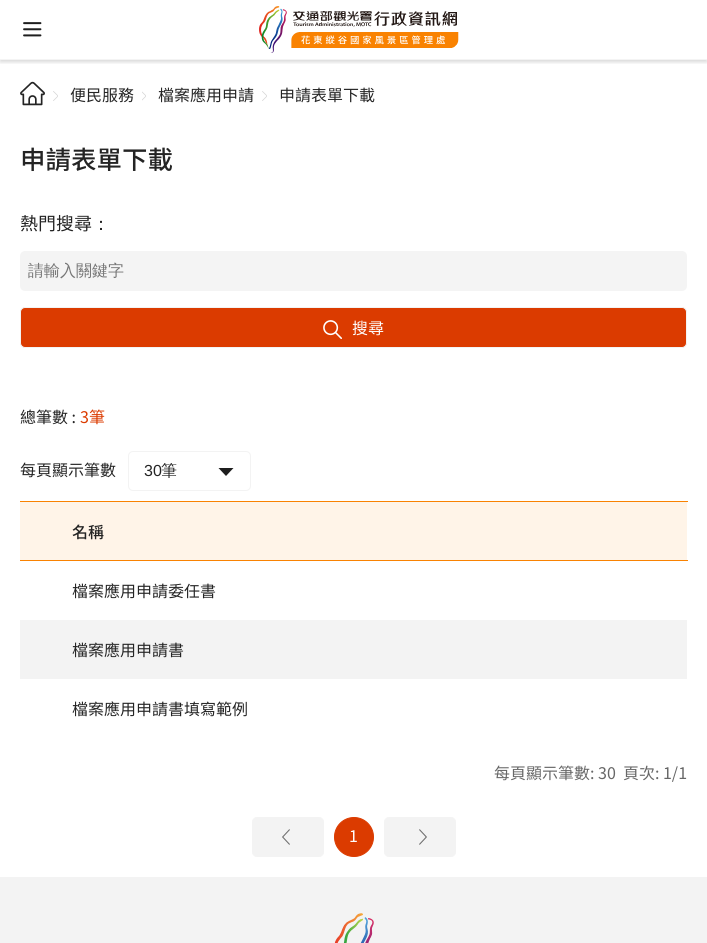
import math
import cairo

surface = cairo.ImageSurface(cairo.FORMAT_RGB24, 707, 943)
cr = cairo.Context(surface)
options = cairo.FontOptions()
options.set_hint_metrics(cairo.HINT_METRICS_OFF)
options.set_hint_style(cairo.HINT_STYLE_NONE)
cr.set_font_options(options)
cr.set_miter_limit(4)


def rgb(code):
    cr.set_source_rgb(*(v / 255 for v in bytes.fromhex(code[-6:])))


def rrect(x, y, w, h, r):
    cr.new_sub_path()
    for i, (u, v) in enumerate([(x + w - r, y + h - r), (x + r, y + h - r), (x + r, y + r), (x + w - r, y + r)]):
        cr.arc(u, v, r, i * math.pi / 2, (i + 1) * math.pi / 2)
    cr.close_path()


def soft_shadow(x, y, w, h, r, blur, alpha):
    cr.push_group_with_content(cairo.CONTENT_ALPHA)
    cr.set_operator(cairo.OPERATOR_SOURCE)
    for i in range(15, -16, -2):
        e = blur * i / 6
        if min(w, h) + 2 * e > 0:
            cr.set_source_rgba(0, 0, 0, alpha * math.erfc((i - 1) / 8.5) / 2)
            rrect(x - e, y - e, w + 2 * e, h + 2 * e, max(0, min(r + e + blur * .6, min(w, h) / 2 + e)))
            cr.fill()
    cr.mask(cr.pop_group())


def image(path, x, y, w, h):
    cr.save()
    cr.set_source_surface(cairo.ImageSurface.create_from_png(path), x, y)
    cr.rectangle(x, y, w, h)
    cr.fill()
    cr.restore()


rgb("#ffffff")
cr.paint()
cr.save()
cr.rectangle(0, 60, 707, 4)
cr.clip()
rgb("#000000")
soft_shadow(0, 2, 707, 60, 0, 2, 0.16)
cr.restore()
rgb("#f4f4f4")
cr.rectangle(0, 59, 707, 1)
cr.fill()
image("img/1.png", 23, 22, 19, 15)
image("img/2.png", 259, 6, 200, 47)
image("img/3.png", 20, 81, 25, 25)
image("img/4.png", 53, 91, 5, 10)
image("img/5.png", 142, 91, 4, 10)
image("img/4.png", 262, 91, 5, 10)
rrect(20, 251, 667, 40, 5)
cr.fill()
rgb("#db3b00")
rrect(20.5, 307.5, 666, 40, 4.5)
cr.fill_preserve()
rgb("#f3f3f3")
cr.set_line_width(1)
cr.stroke()
image("img/6.png", 323, 320, 19, 19)
rgb("#1e1e1e")
cr.new_path()
cr.move_to(218.5, 468)
cr.line_to(233.5, 468)
cr.line_to(226, 476)
cr.close_path()
cr.fill()
rrect(128.5, 451.5, 122, 39, 4.5)
rgb("#f3f3f3")
cr.stroke()
for x, y, w, h, color in [
    (20, 501, 668, 1, "#f98201"),
    (20, 560, 668, 1, "#f98201"),
    (20, 502, 667, 58, "#fff4e8"),
    (20, 620, 667, 59, "#f3f3f3"),
]:
    rgb(color)
    cr.rectangle(x, y, w, h)
    cr.fill()
rrect(252.5, 817.5, 71, 39, 4.5)
cr.fill_preserve()
cr.stroke()
image("img/7.png", 282, 829, 8, 16)
rgb("#db3b00")
cr.arc(354, 837, 19.5, 0, 2 * math.pi)
cr.fill_preserve()
cr.stroke()
rgb("#f3f3f3")
rrect(384.5, 817.5, 71, 39, 4.5)
cr.fill_preserve()
cr.stroke()
image("img/8.png", 419, 829, 8, 16)
cr.rectangle(0, 877, 707, 66)
cr.fill()
image("img/9.png", 334, 913, 40, 30)
cr.select_font_face("Noto Sans TC")
cr.set_font_size(16)
rgb("#242424")
for x, y, s in [
    (70, 101, "便民服務"),
    (158, 101, "檔案應用申請"),
    (279, 101, "申請表單下載"),
]:
    cr.move_to(x, y)
    cr.show_text(s)
cr.select_font_face("Noto Sans TC Medium")
cr.set_font_size(25.5)
cr.move_to(20, 169)
cr.show_text("申請表單下載")
cr.select_font_face("Noto Sans TC")
cr.set_font_size(18)
cr.move_to(20, 230)
cr.show_text("熱門搜尋")
cr.select_font_face("WenQuanYi Zen Hei Medium")
cr.move_to(92, 230)
cr.show_text("：")
cr.set_font_size(16)
rgb("#757575")
cr.move_to(28, 276)
cr.show_text("請輸入關鍵字")
cr.select_font_face("Noto Sans TC")
rgb("#ffffff")
cr.move_to(352, 334)
cr.show_text("搜尋")
rgb("#242424")
cr.move_to(20, 423)
cr.show_text("總筆數 :")
rgb("#db3b00")
cr.move_to(80, 423)
cr.show_text("3筆")
rgb("#242424")
cr.move_to(20, 476)
cr.show_text("每頁顯示筆數")
cr.select_font_face("Liberation Sans")
cr.move_to(144, 476)
cr.show_text("30")
cr.select_font_face("WenQuanYi Zen Hei Medium")
cr.move_to(161, 476)
cr.show_text("筆")
cr.select_font_face("Noto Sans TC Medium")
cr.move_to(72, 538)
cr.show_text("名稱")
cr.select_font_face("Noto Sans TC")
for x, y, s in [
    (72, 597, "檔案應用申請委任書"),
    (72, 656, "檔案應用申請書"),
    (72, 715, "檔案應用申請書填寫範例"),
]:
    cr.move_to(x, y)
    cr.show_text(s)
rgb("#676767")
cr.move_to(494, 779)
cr.show_text("每頁顯示筆數: 30  頁次: 1/1")
rgb("#ffffff")
cr.move_to(349, 842)
cr.show_text("1")
surface.write_to_png("page.png")
